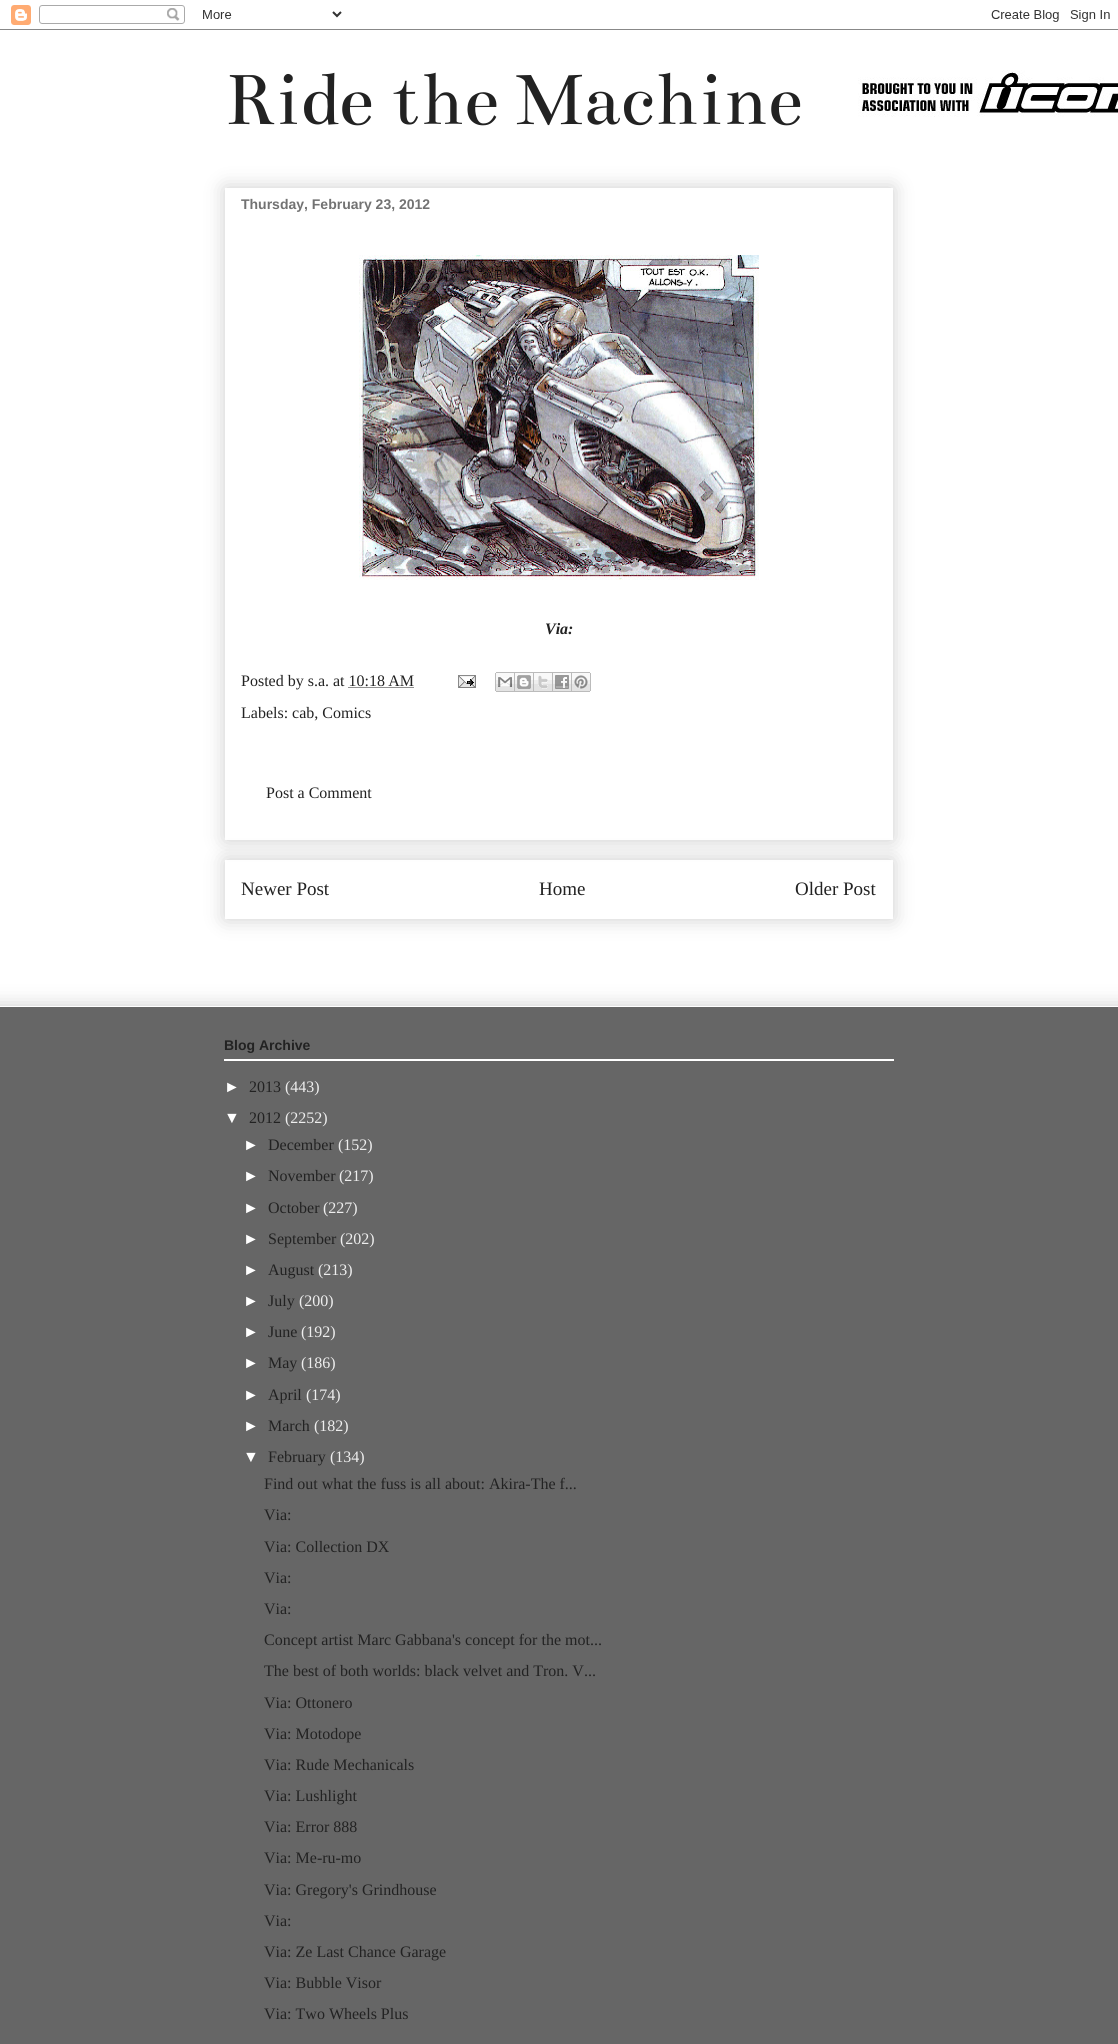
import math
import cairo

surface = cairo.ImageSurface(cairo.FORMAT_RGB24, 1118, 2044)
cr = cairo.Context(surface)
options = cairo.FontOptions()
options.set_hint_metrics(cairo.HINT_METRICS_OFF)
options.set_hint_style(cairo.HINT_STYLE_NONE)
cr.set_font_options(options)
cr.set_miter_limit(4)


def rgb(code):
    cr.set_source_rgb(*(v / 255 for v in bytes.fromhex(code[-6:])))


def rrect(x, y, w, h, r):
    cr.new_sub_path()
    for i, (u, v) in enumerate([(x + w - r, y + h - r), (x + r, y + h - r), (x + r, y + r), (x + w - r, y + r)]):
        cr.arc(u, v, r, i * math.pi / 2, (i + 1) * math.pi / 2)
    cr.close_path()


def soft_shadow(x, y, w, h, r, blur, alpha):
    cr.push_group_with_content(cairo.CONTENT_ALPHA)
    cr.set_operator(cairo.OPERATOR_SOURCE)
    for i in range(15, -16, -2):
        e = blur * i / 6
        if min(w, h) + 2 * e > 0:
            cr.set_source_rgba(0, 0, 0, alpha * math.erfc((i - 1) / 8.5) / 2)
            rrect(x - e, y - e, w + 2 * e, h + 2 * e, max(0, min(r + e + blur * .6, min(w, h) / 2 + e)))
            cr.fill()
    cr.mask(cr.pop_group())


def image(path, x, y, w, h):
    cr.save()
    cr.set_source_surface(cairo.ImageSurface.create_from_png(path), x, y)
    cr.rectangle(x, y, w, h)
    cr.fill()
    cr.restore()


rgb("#ffffff")
cr.paint()
image("img/1.png", 0, 5, 1118, 25)
image("img/2.png", 858, 70, 260, 47)
cr.save()
cr.set_fill_rule(cairo.FILL_RULE_EVEN_ODD)
cr.new_path()
cr.move_to(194, 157)
cr.line_to(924, 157)
cr.line_to(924, 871)
cr.line_to(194, 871)
cr.close_path()
cr.move_to(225, 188)
cr.line_to(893, 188)
cr.line_to(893, 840)
cr.line_to(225, 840)
cr.close_path()
cr.clip()
rgb("#000000")
soft_shadow(225, 188, 668, 652, 0, 10, 0.2)
cr.restore()
image("img/3.png", 359, 255, 400, 325)
image("img/4.png", 458, 675, 18, 13)
image("img/5.png", 495, 672, 20, 20)
image("img/6.png", 515, 672, 19, 20)
image("img/7.png", 534, 672, 19, 20)
image("img/8.png", 553, 672, 19, 20)
image("img/9.png", 572, 672, 19, 20)
cr.new_path()
cr.move_to(348.5, 687.5)
cr.line_to(414, 687.5)
rgb("#222222")
cr.set_line_width(1)
cr.set_dash([1, 1])
cr.stroke()
cr.save()
cr.set_fill_rule(cairo.FILL_RULE_EVEN_ODD)
cr.new_path()
cr.move_to(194, 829)
cr.line_to(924, 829)
cr.line_to(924, 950)
cr.line_to(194, 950)
cr.close_path()
cr.move_to(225, 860)
cr.line_to(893, 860)
cr.line_to(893, 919)
cr.line_to(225, 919)
cr.close_path()
cr.clip()
rgb("#000000")
soft_shadow(225, 860, 668, 59, 0, 10, 0.2)
cr.restore()
rgb("#000000")
soft_shadow(-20, 1006, 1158, 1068, 0, 10, 0.2)
for x, y, w, h, color in [
    (0, 1007, 1118, 1037, "#666666"),
    (0, 1006, 1118, 1, "#ffffff"),
    (224, 1059, 670, 2, "#ffffff"),
]:
    rgb(color)
    cr.rectangle(x, y, w, h)
    cr.fill()
cr.select_font_face("Bentham")
cr.set_font_size(80)
rgb("#222222")
cr.move_to(225, 124)
cr.show_text("Ride the Machine")
cr.select_font_face("Liberation Sans", cairo.FONT_SLANT_NORMAL, cairo.FONT_WEIGHT_BOLD)
cr.set_font_size(14)
rgb("#727272")
cr.move_to(241, 209)
cr.show_text("Thursday, February 23, 2012")
cr.select_font_face("Liberation Serif", cairo.FONT_SLANT_ITALIC, cairo.FONT_WEIGHT_BOLD)
cr.set_font_size(16)
rgb("#222222")
cr.move_to(545, 634)
cr.show_text("Via:")
cr.select_font_face("Liberation Serif")
for x, y, s in [
    (241, 686, "Posted by s.a. at 10:18 AM"),
    (241, 718, "Labels: cab, Comics"),
    (266, 798, "Post a Comment"),
]:
    cr.move_to(x, y)
    cr.show_text(s)
cr.set_font_size(19)
for x, y, s in [
    (241, 895, "Newer Post"),
    (539, 895, "Home"),
    (795, 895, "Older Post"),
]:
    cr.move_to(x, y)
    cr.show_text(s)
cr.select_font_face("Liberation Sans", cairo.FONT_SLANT_NORMAL, cairo.FONT_WEIGHT_BOLD)
cr.set_font_size(14)
cr.move_to(224, 1050)
cr.show_text("Blog Archive")
cr.select_font_face("Liberation Sans")
cr.set_font_size(16)
rgb("#ffffff")
cr.move_to(224, 1092)
cr.show_text("►")
cr.select_font_face("Liberation Serif")
rgb("#222222")
cr.move_to(249, 1092)
cr.show_text("2013")
rgb("#eeeeee")
cr.move_to(285, 1092)
cr.show_text("(443)")
cr.select_font_face("Liberation Sans")
rgb("#ffffff")
cr.move_to(224, 1123)
cr.show_text("▼")
cr.select_font_face("Liberation Serif")
rgb("#222222")
cr.move_to(249, 1123)
cr.show_text("2012")
rgb("#eeeeee")
cr.move_to(285, 1123)
cr.show_text("(2252)")
cr.select_font_face("Liberation Sans")
rgb("#ffffff")
cr.move_to(243, 1150)
cr.show_text("►")
cr.select_font_face("Liberation Serif")
rgb("#222222")
cr.move_to(268, 1150)
cr.show_text("December")
rgb("#eeeeee")
cr.move_to(338, 1150)
cr.show_text("(152)")
cr.select_font_face("Liberation Sans")
rgb("#ffffff")
cr.move_to(243, 1181)
cr.show_text("►")
cr.select_font_face("Liberation Serif")
rgb("#222222")
cr.move_to(268, 1181)
cr.show_text("November")
rgb("#eeeeee")
cr.move_to(339, 1181)
cr.show_text("(217)")
cr.select_font_face("Liberation Sans")
rgb("#ffffff")
cr.move_to(243, 1213)
cr.show_text("►")
cr.select_font_face("Liberation Serif")
rgb("#222222")
cr.move_to(268, 1213)
cr.show_text("October")
rgb("#eeeeee")
cr.move_to(323, 1213)
cr.show_text("(227)")
cr.select_font_face("Liberation Sans")
rgb("#ffffff")
cr.move_to(243, 1244)
cr.show_text("►")
cr.select_font_face("Liberation Serif")
rgb("#222222")
cr.move_to(268, 1244)
cr.show_text("September")
rgb("#eeeeee")
cr.move_to(340, 1244)
cr.show_text("(202)")
cr.select_font_face("Liberation Sans")
rgb("#ffffff")
cr.move_to(243, 1275)
cr.show_text("►")
cr.select_font_face("Liberation Serif")
rgb("#222222")
cr.move_to(268, 1275)
cr.show_text("August")
rgb("#eeeeee")
cr.move_to(318, 1275)
cr.show_text("(213)")
cr.select_font_face("Liberation Sans")
rgb("#ffffff")
cr.move_to(243, 1306)
cr.show_text("►")
cr.select_font_face("Liberation Serif")
rgb("#222222")
cr.move_to(268, 1306)
cr.show_text("July")
rgb("#eeeeee")
cr.move_to(299, 1306)
cr.show_text("(200)")
cr.select_font_face("Liberation Sans")
rgb("#ffffff")
cr.move_to(243, 1337)
cr.show_text("►")
cr.select_font_face("Liberation Serif")
rgb("#222222")
cr.move_to(268, 1337)
cr.show_text("June")
rgb("#eeeeee")
cr.move_to(301, 1337)
cr.show_text("(192)")
cr.select_font_face("Liberation Sans")
rgb("#ffffff")
cr.move_to(243, 1368)
cr.show_text("►")
cr.select_font_face("Liberation Serif")
rgb("#222222")
cr.move_to(268, 1368)
cr.show_text("May")
rgb("#eeeeee")
cr.move_to(301, 1368)
cr.show_text("(186)")
cr.select_font_face("Liberation Sans")
rgb("#ffffff")
cr.move_to(243, 1400)
cr.show_text("►")
cr.select_font_face("Liberation Serif")
rgb("#222222")
cr.move_to(268, 1400)
cr.show_text("April")
rgb("#eeeeee")
cr.move_to(306, 1400)
cr.show_text("(174)")
cr.select_font_face("Liberation Sans")
rgb("#ffffff")
cr.move_to(243, 1431)
cr.show_text("►")
cr.select_font_face("Liberation Serif")
rgb("#222222")
cr.move_to(268, 1431)
cr.show_text("March")
rgb("#eeeeee")
cr.move_to(314, 1431)
cr.show_text("(182)")
cr.select_font_face("Liberation Sans")
rgb("#ffffff")
cr.move_to(243, 1462)
cr.show_text("▼")
cr.select_font_face("Liberation Serif")
rgb("#222222")
cr.move_to(268, 1462)
cr.show_text("February")
rgb("#eeeeee")
cr.move_to(330, 1462)
cr.show_text("(134)")
rgb("#222222")
for x, y, s in [
    (264, 1489, "Find out what the fuss is all about: Akira-The f..."),
    (264, 1520, "Via:"),
    (264, 1552, "Via: Collection DX"),
    (264, 1583, "Via:"),
    (264, 1614, "Via:"),
    (264, 1645, "Concept artist Marc Gabbana's concept for the mot..."),
    (264, 1676, "The best of both worlds: black velvet and Tron. V..."),
    (264, 1708, "Via: Ottonero"),
    (264, 1739, "Via: Motodope"),
    (264, 1770, "Via: Rude Mechanicals"),
    (264, 1801, "Via: Lushlight"),
    (264, 1832, "Via: Error 888"),
    (264, 1863, "Via: Me-ru-mo"),
    (264, 1895, "Via: Gregory's Grindhouse"),
    (264, 1926, "Via:"),
    (264, 1957, "Via: Ze Last Chance Garage"),
    (264, 1988, "Via: Bubble Visor"),
    (264, 2019, "Via: Two Wheels Plus"),
]:
    cr.move_to(x, y)
    cr.show_text(s)
surface.write_to_png("page.png")
